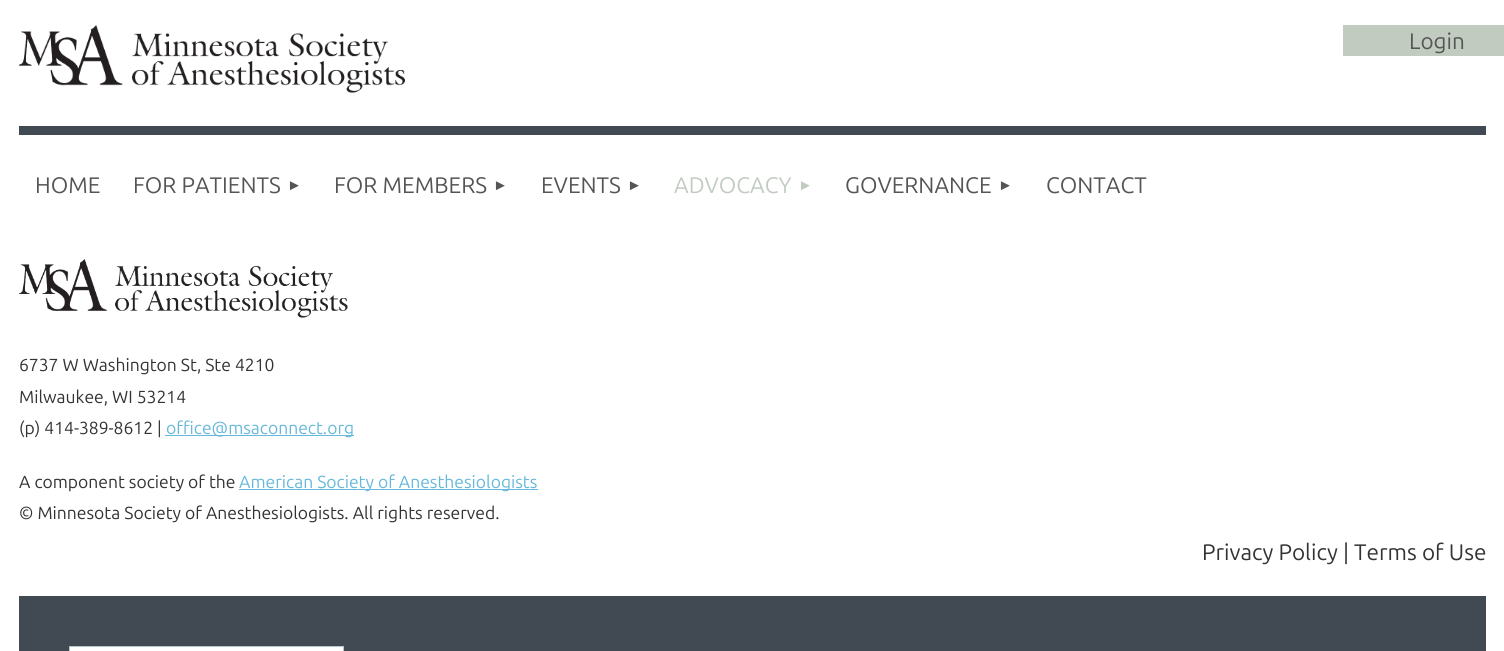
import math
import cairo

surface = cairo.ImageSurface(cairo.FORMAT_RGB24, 1504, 651)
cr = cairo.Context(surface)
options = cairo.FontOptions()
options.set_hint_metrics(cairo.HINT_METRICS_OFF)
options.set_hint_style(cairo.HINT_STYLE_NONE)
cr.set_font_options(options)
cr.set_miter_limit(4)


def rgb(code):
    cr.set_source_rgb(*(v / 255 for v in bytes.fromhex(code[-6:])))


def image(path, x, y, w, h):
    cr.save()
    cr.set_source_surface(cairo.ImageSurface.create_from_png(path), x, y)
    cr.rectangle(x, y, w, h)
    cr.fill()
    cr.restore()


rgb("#ffffff")
cr.paint()
image("img/1.png", 18, 25, 387, 68)
rgb("#c1cbc0")
cr.rectangle(1343, 25, 161, 31)
cr.fill()
rgb("#414a53")
cr.rectangle(19, 126, 1467, 9)
cr.fill()
image("img/2.png", 18, 259, 330, 59)
for x, y, w, h, color in [
    (165, 435, 189, 1, "#67b8db"),
    (239, 489, 299, 1, "#67b8db"),
    (19, 596, 1467, 55, "#414a53"),
]:
    rgb(color)
    cr.rectangle(x, y, w, h)
    cr.fill()
rgb("#ffffff")
cr.rectangle(69.5, 646.5, 274, 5)
cr.fill_preserve()
rgb("#b8c6cd")
cr.set_line_width(1)
cr.stroke()
cr.select_font_face("Ubuntu")
cr.set_font_size(22.5)
rgb("#555555")
for x, y, s in [
    (1409, 49, "Login"),
    (35, 193, "HOME"),
    (133, 193, "FOR PATIENTS"),
]:
    cr.move_to(x, y)
    cr.show_text(s)
cr.select_font_face("Liberation Sans")
cr.set_font_size(15)
cr.move_to(287, 190)
cr.show_text("►")
cr.select_font_face("Ubuntu")
cr.set_font_size(22.5)
cr.move_to(334, 193)
cr.show_text("FOR MEMBERS")
cr.select_font_face("Liberation Sans")
cr.set_font_size(15)
cr.move_to(493, 190)
cr.show_text("►")
cr.select_font_face("Ubuntu")
cr.set_font_size(22.5)
cr.move_to(541, 193)
cr.show_text("EVENTS")
cr.select_font_face("Liberation Sans")
cr.set_font_size(15)
cr.move_to(627, 190)
cr.show_text("►")
cr.select_font_face("Ubuntu")
cr.set_font_size(22.5)
rgb("#c1cbc0")
cr.move_to(674, 193)
cr.show_text("ADVOCACY")
cr.select_font_face("Liberation Sans")
cr.set_font_size(15)
cr.move_to(798, 190)
cr.show_text("►")
cr.select_font_face("Ubuntu")
cr.set_font_size(22.5)
rgb("#555555")
cr.move_to(845, 193)
cr.show_text("GOVERNANCE")
cr.select_font_face("Liberation Sans")
cr.set_font_size(15)
cr.move_to(998, 190)
cr.show_text("►")
cr.select_font_face("Ubuntu")
cr.set_font_size(22.5)
cr.move_to(1046, 193)
cr.show_text("CONTACT")
cr.set_font_size(17.5)
rgb("#333333")
for x, y, s in [
    (19, 371, "6737 W Washington St, Ste 4210"),
    (19, 403, "Milwaukee, WI 53214"),
    (19, 434, "(p) 414-389-8612 |"),
]:
    cr.move_to(x, y)
    cr.show_text(s)
rgb("#67b8db")
cr.move_to(166, 434)
cr.show_text("office@msaconnect.org")
rgb("#333333")
cr.move_to(19, 488)
cr.show_text("A component society of the")
rgb("#67b8db")
cr.move_to(239, 488)
cr.show_text("American Society of Anesthesiologists")
rgb("#333333")
cr.move_to(19, 519)
cr.show_text("© Minnesota Society of Anesthesiologists. All rights reserved.")
cr.set_font_size(22.5)
cr.move_to(1202, 560)
cr.show_text("Privacy Policy | Terms of Use")
surface.write_to_png("page.png")
